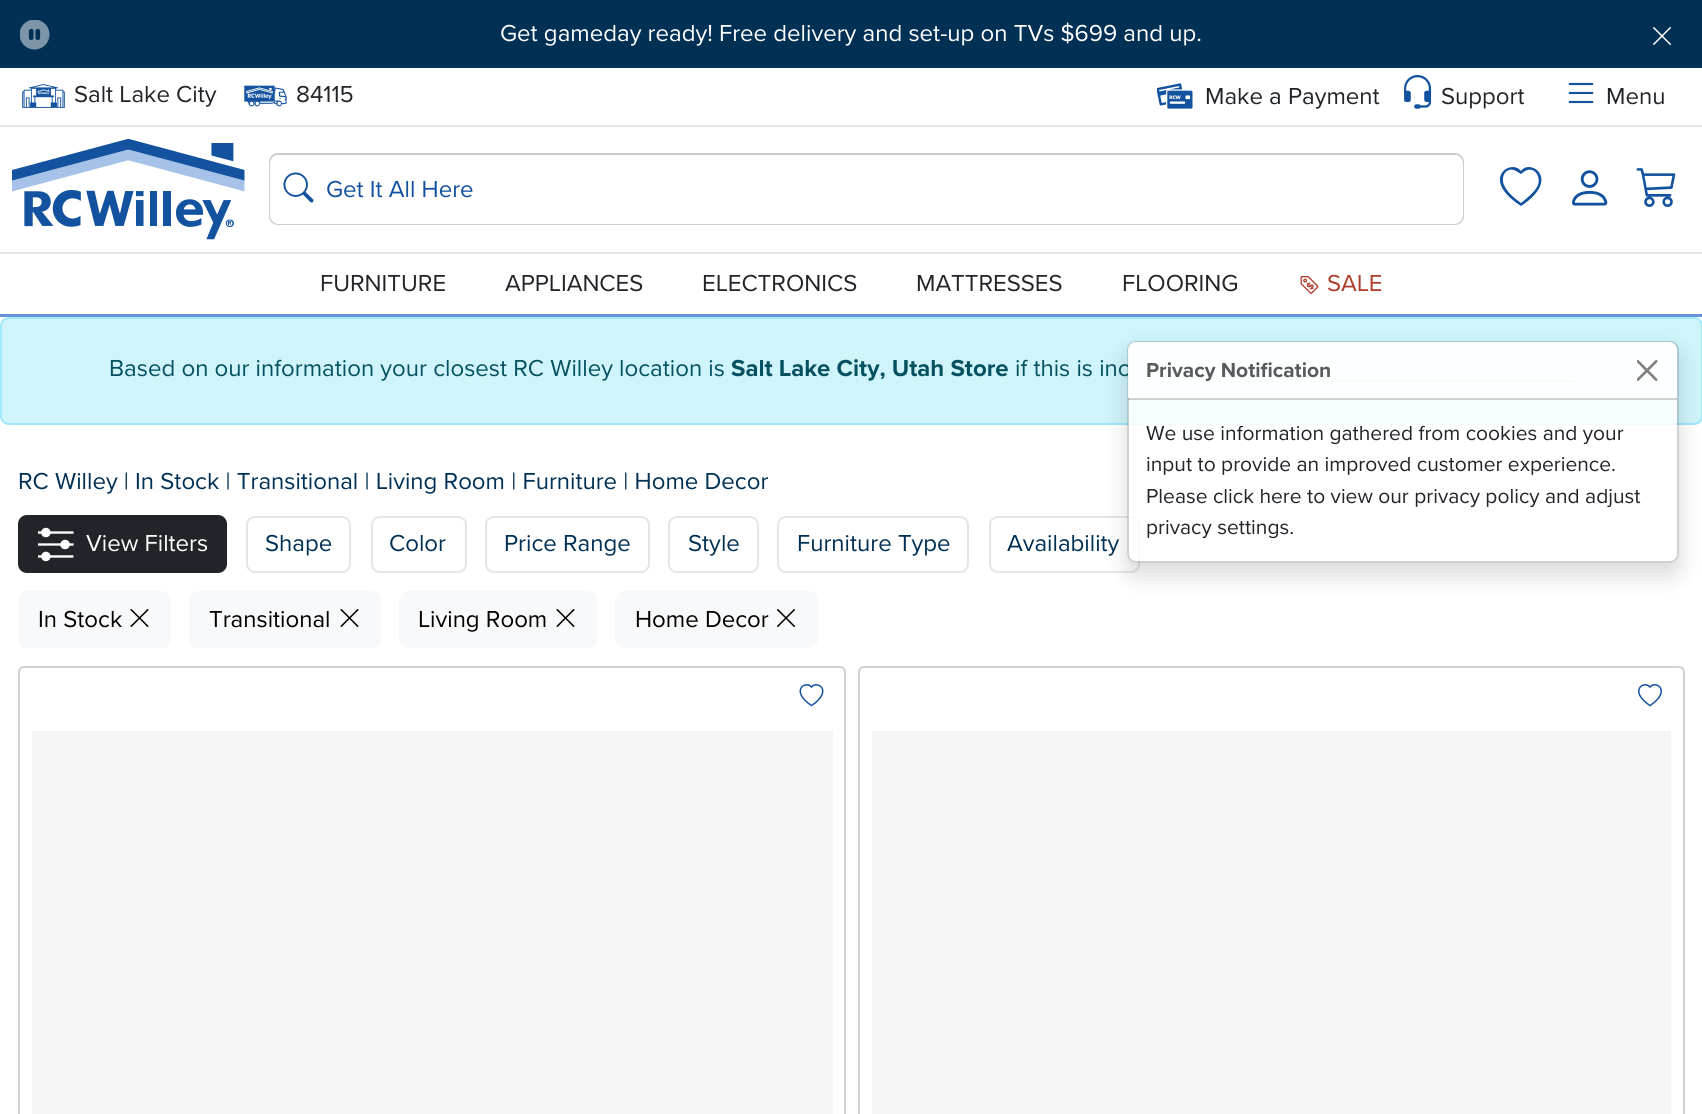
import math
import cairo

surface = cairo.ImageSurface(cairo.FORMAT_RGB24, 1702, 1114)
cr = cairo.Context(surface)
options = cairo.FontOptions()
options.set_hint_metrics(cairo.HINT_METRICS_OFF)
options.set_hint_style(cairo.HINT_STYLE_NONE)
cr.set_font_options(options)
cr.set_miter_limit(4)


def rgb(code):
    cr.set_source_rgb(*(v / 255 for v in bytes.fromhex(code[-6:])))


def rrect(x, y, w, h, r):
    cr.new_sub_path()
    for i, (u, v) in enumerate([(x + w - r, y + h - r), (x + r, y + h - r), (x + r, y + r), (x + w - r, y + r)]):
        cr.arc(u, v, r, i * math.pi / 2, (i + 1) * math.pi / 2)
    cr.close_path()


def soft_shadow(x, y, w, h, r, blur, alpha):
    cr.push_group_with_content(cairo.CONTENT_ALPHA)
    cr.set_operator(cairo.OPERATOR_SOURCE)
    for i in range(15, -16, -2):
        e = blur * i / 6
        if min(w, h) + 2 * e > 0:
            cr.set_source_rgba(0, 0, 0, alpha * math.erfc((i - 1) / 8.5) / 2)
            rrect(x - e, y - e, w + 2 * e, h + 2 * e, max(0, min(r + e + blur * .6, min(w, h) / 2 + e)))
            cr.fill()
    cr.mask(cr.pop_group())


def image(path, x, y, w, h):
    cr.save()
    cr.set_source_surface(cairo.ImageSurface.create_from_png(path), x, y)
    cr.rectangle(x, y, w, h)
    cr.fill()
    cr.restore()


rgb("#ffffff")
cr.paint()
rgb("#6793da")
cr.rectangle(0, 314, 1702, 3)
cr.fill()
rgb("#003054")
cr.rectangle(0, 0, 1702, 68)
cr.fill()
image("img/1.png", 20, 20, 30, 30)
image("img/2.png", 1653, 27, 18, 18)
image("img/3.png", 22, 84, 43, 24)
image("img/4.png", 244, 85, 43, 22)
image("img/5.png", 1157, 83, 36, 26)
image("img/6.png", 1404, 75, 28, 34)
image("img/7.png", 1568, 82, 26, 22)
rgb("#e5e5e5")
cr.rectangle(0, 125, 1702, 2)
cr.fill()
cr.rectangle(0, 252, 1702, 2)
cr.fill()
image("img/8.png", 12, 138, 233, 102)
rrect(270, 154, 1193, 70, 8)
rgb("#cccccc")
cr.stroke()
rgb("#ffffff")
rrect(270, 155, 1193, 69, 9)
cr.fill()
image("img/9.png", 283, 172, 31, 31)
rgb("#12529e")
cr.new_path()
cr.move_to(1521, 174)
cr.line_to(1516, 171)
cr.curve_to(1507, 166, 1500, 176, 1504, 185)
cr.curve_to(1507, 192, 1514, 198, 1521, 203)
cr.curve_to(1527, 198, 1535, 192, 1538, 185)
cr.curve_to(1541, 176, 1534, 166, 1525, 171)
cr.close_path()
cr.move_to(1521, 206)
cr.curve_to(1479, 179, 1511, 158, 1521, 171)
cr.curve_to(1530, 158, 1562, 179, 1521, 206)
cr.close_path()
cr.fill()
image("img/10.png", 1572, 170, 36, 36)
image("img/11.png", 1636, 168, 40, 39)
image("img/12.png", 1300, 276, 19, 18)
rgb("#cff4fc")
rrect(1, 318, 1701, 106, 8)
cr.fill_preserve()
rgb("#9eeaf9")
cr.stroke()
rgb("#12529e")
cr.rectangle(1218, 380, 356, 2)
cr.fill()
rrect(990, 517, 149, 55, 8)
rgb("#e5e5e5")
cr.stroke()
cr.save()
cr.set_fill_rule(cairo.FILL_RULE_EVEN_ODD)
cr.new_path()
cr.move_to(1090, 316)
cr.line_to(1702, 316)
cr.line_to(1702, 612)
cr.line_to(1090, 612)
cr.close_path()
cr.move_to(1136, 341)
cr.line_to(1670, 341)
cr.curve_to(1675, 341, 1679, 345, 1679, 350)
cr.line_to(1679, 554)
cr.curve_to(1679, 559, 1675, 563, 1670, 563)
cr.line_to(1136, 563)
cr.curve_to(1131, 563, 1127, 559, 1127, 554)
cr.line_to(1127, 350)
cr.curve_to(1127, 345, 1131, 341, 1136, 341)
cr.close_path()
cr.clip()
rgb("#000000")
soft_shadow(1127, 353, 552, 222, 9, 12, 0.15)
cr.restore()
rgb("#212529")
rrect(19, 516, 207, 56, 8)
cr.fill_preserve()
cr.stroke()
image("img/14.png", 38, 527, 36, 35)
rrect(247, 517, 103, 55, 8)
rgb("#e5e5e5")
cr.stroke()
rrect(372, 517, 94, 55, 8)
cr.stroke()
rrect(486, 517, 163, 55, 8)
cr.stroke()
rrect(669, 517, 89, 55, 8)
cr.stroke()
rrect(778, 517, 190, 55, 8)
cr.stroke()
rgb("#f8f9fa")
rrect(18, 591, 153, 57, 9)
cr.fill()
image("img/15.png", 130, 609, 19, 18)
rrect(189, 591, 192, 57, 9)
cr.fill()
image("img/15.png", 340, 609, 19, 18)
rrect(399, 591, 198, 57, 9)
cr.fill()
image("img/15.png", 556, 609, 19, 18)
rrect(615, 591, 203, 57, 9)
cr.fill()
image("img/16.png", 777, 609, 18, 18)
rrect(19, 667, 826, 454, 5)
rgb("#d2d2d2")
cr.stroke()
image("img/17.png", 799, 684, 25, 23)
rgb("#f5f5f5")
cr.rectangle(32, 731, 801, 383)
cr.fill()
rrect(859, 667, 825, 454, 5)
rgb("#d2d2d2")
cr.stroke()
image("img/18.png", 1638, 684, 24, 23)
rgb("#f5f5f5")
cr.rectangle(872, 731, 799, 383)
cr.fill()
cr.select_font_face("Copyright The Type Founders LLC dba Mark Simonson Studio")
cr.set_font_size(24)
rgb("#ffffff")
cr.move_to(500, 41)
cr.show_text("Get gameday ready! Free delivery and set-up on TVs $699 and up.")
rgb("#212529")
for x, y, s in [
    (74, 102, "Salt Lake City"),
    (296, 102, "84115"),
    (1205, 104, "Make a Payment"),
    (1441, 104, "Support"),
    (1606, 104, "Menu"),
]:
    cr.move_to(x, y)
    cr.show_text(s)
rgb("#1251a0")
cr.move_to(326, 197)
cr.show_text("Get It All Here")
rgb("#212529")
for x, y, s in [
    (320, 291, "FURNITURE"),
    (505, 291, "APPLIANCES"),
    (702, 291, "ELECTRONICS"),
    (916, 291, "MATTRESSES"),
    (1122, 291, "FLOORING"),
]:
    cr.move_to(x, y)
    cr.show_text(s)
rgb("#ac3d29")
cr.move_to(1327, 291)
cr.show_text("SALE")
rgb("#055160")
cr.move_to(109, 376)
cr.show_text("Based on our information your closest RC Willey location is")
cr.select_font_face("Copyright The Type Founders LLC dba Mark Simonson Studio", cairo.FONT_SLANT_NORMAL, cairo.FONT_WEIGHT_BOLD)
cr.move_to(731, 376)
cr.show_text("Salt Lake City, Utah Store")
cr.select_font_face("Copyright The Type Founders LLC dba Mark Simonson Studio")
cr.move_to(1015, 376)
cr.show_text("if this is inc")
cr.set_source_rgba(1, 1, 1, 0.85)
rrect(1128, 342, 549, 219, 8)
cr.fill()
rrect(1128, 342, 550, 220, 8)
cr.set_source_rgba(0, 0, 0, 0.18)
cr.stroke()
cr.set_source_rgba(1, 1, 1, 0.85)
cr.new_path()
cr.move_to(1136, 342)
cr.line_to(1669, 342)
cr.curve_to(1673.5, 342, 1677, 345.5, 1677, 350)
cr.line_to(1677, 398)
cr.line_to(1128, 398)
cr.line_to(1128, 350)
cr.curve_to(1128, 345.5, 1131.5, 342, 1136, 342)
cr.close_path()
cr.fill()
cr.set_source_rgba(0, 0, 0, 0.18)
cr.rectangle(1128, 398, 549, 2)
cr.fill()
cr.select_font_face("Copyright The Type Founders LLC dba Mark Simonson Studio", cairo.FONT_SLANT_NORMAL, cairo.FONT_WEIGHT_BOLD)
cr.set_font_size(21)
rgb("#585b5e")
cr.move_to(1146, 377)
cr.show_text("Privacy Notification")
image("img/13.png", 1637, 360, 21, 21)
cr.select_font_face("Copyright The Type Founders LLC dba Mark Simonson Studio")
rgb("#212529")
for x, y, s in [
    (1146, 440, "We use information gathered from cookies and your"),
    (1146, 471, "input to provide an improved customer experience."),
    (1146, 503, "Please click here to view our privacy policy and adjust"),
    (1146, 534, "privacy settings."),
]:
    cr.move_to(x, y)
    cr.show_text(s)
cr.set_font_size(24)
rgb("#003054")
cr.move_to(18, 489)
cr.show_text("RC Willey | In Stock | Transitional | Living Room | Furniture | Home Decor")
rgb("#ffffff")
cr.move_to(86, 551)
cr.show_text("View Filters")
rgb("#003054")
for x, y, s in [
    (265, 551, "Shape"),
    (389, 551, "Color"),
    (504, 551, "Price Range"),
    (688, 551, "Style"),
    (797, 551, "Furniture Type"),
    (1007, 551, "Availability"),
]:
    cr.move_to(x, y)
    cr.show_text(s)
rgb("#000000")
for x, y, s in [
    (38, 627, "In Stock"),
    (209, 627, "Transitional"),
    (418, 627, "Living Room"),
    (635, 627, "Home Decor"),
]:
    cr.move_to(x, y)
    cr.show_text(s)
surface.write_to_png("page.png")
